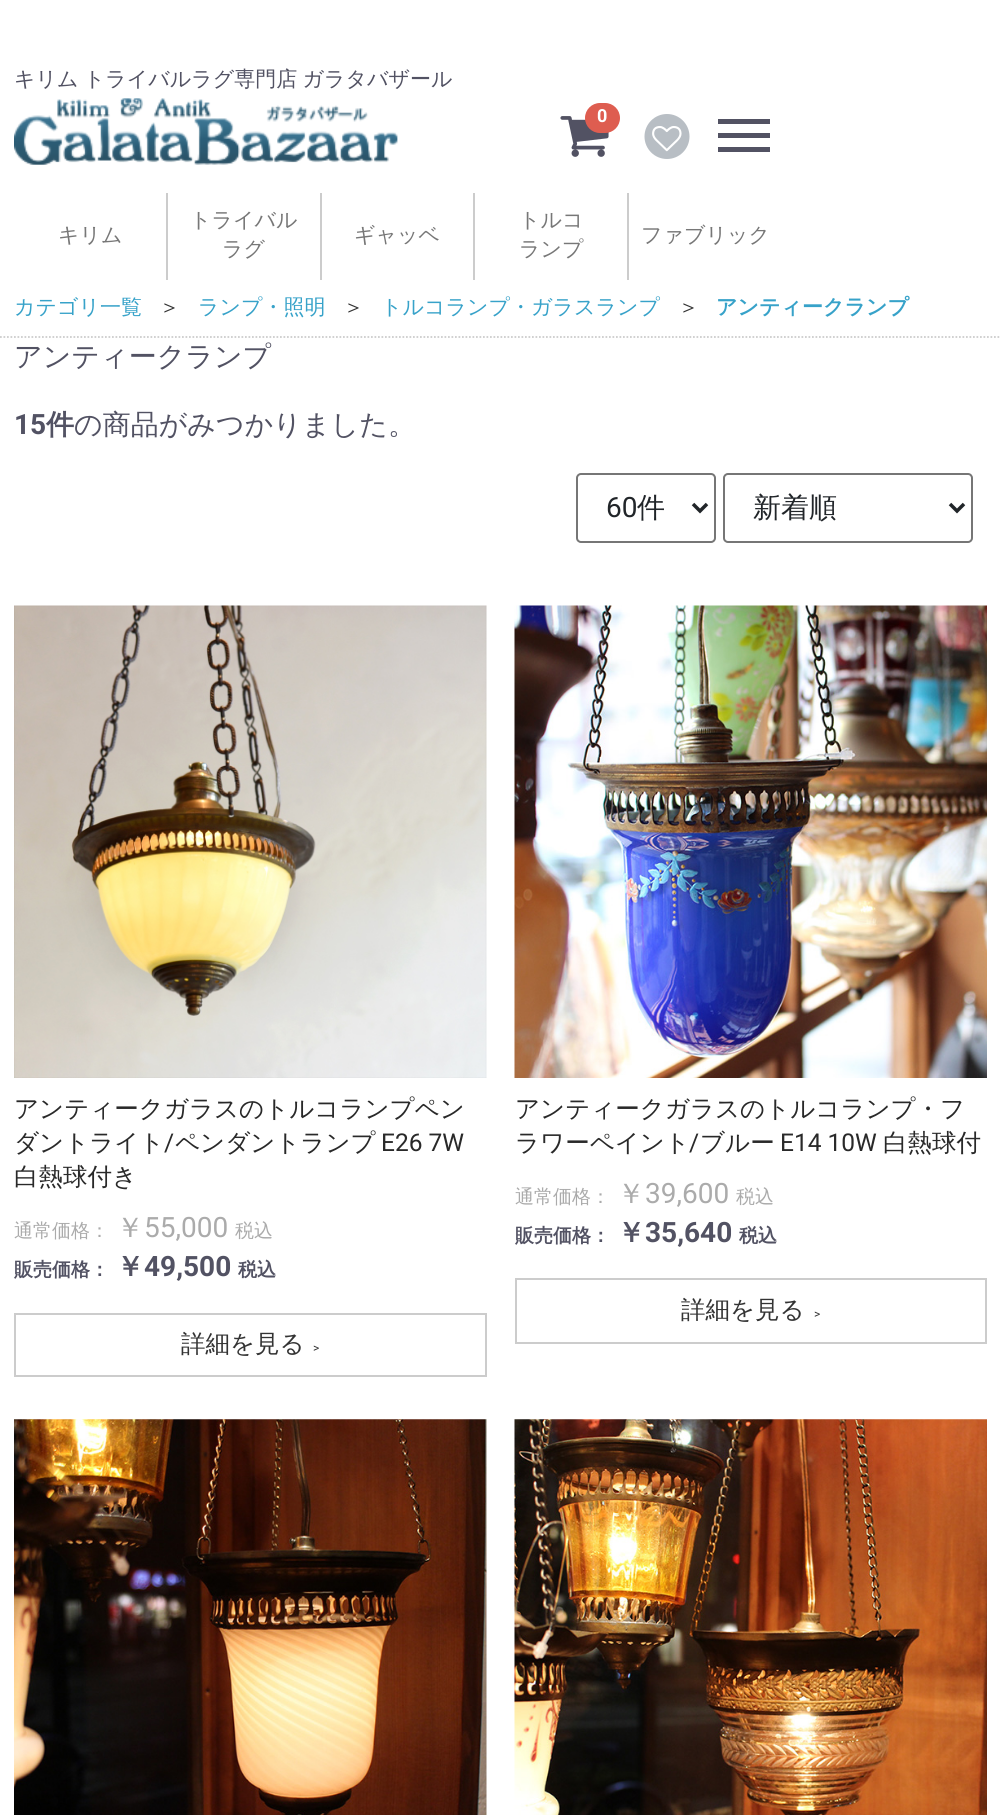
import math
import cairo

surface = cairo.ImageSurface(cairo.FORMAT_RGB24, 1000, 1815)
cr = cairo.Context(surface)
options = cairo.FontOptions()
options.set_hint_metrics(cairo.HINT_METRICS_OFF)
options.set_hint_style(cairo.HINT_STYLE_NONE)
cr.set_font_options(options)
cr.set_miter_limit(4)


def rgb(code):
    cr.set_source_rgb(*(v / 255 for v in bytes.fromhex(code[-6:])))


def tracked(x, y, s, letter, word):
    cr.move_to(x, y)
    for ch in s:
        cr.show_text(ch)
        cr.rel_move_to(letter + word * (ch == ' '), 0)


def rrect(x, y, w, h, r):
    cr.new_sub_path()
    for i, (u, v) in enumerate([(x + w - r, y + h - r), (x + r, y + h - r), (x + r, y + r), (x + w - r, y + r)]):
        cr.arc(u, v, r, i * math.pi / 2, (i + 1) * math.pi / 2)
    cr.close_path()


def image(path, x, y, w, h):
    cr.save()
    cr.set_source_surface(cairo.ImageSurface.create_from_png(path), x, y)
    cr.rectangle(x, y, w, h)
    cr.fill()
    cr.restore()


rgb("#ffffff")
cr.paint()
image("img/1.png", 14, 98, 384, 67)
image("img/2.png", 560, 116, 49, 41)
rgb("#de5d50")
rrect(585, 103, 35, 30, 15)
cr.fill()
image("img/3.png", 644, 114, 46, 45)
for x, y, w, h, color in [
    (718, 133, 52, 5, "#525263"),
    (718, 119, 52, 5, "#525263"),
    (718, 147, 52, 5, "#525263"),
    (166, 193, 2, 87, "#cccccc"),
    (320, 193, 2, 87, "#cccccc"),
    (473, 193, 2, 87, "#cccccc"),
    (627, 193, 2, 87, "#cccccc"),
]:
    rgb(color)
    cr.rectangle(x, y, w, h)
    cr.fill()
cr.new_path()
cr.move_to(0, 337)
cr.line_to(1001, 337)
cr.set_line_width(1.8)
cr.set_dash([1.75, 1.75])
cr.stroke()
rrect(577, 474, 138, 68, 4)
rgb("#767676")
cr.set_line_width(2)
cr.set_dash([])
cr.stroke()
cr.new_path()
cr.move_to(693, 504)
cr.line_to(700, 511)
cr.line_to(707, 504)
rgb("#212529")
cr.set_line_width(3.5)
cr.stroke()
rrect(724, 474, 248, 68, 4)
rgb("#767676")
cr.set_line_width(2)
cr.stroke()
cr.new_path()
cr.move_to(950, 504)
cr.line_to(957, 511)
cr.line_to(964, 504)
rgb("#212529")
cr.set_line_width(3.5)
cr.stroke()
image("img/4.png", 14, 605, 473, 473)
cr.rectangle(15, 1314, 471, 62)
rgb("#cccccc")
cr.set_line_width(2)
cr.stroke()
image("img/5.png", 514, 605, 473, 473)
cr.rectangle(516, 1279, 470, 64)
cr.stroke()
image("img/6.png", 14, 1419, 473, 396)
image("img/7.png", 514, 1419, 473, 396)
cr.select_font_face("WenQuanYi Zen Hei Medium")
cr.set_font_size(21)
rgb("#525263")
tracked(14, 86, "キリム トライバルラグ専門店 ガラタバザール", 0, -1)
cr.select_font_face("Roboto", cairo.FONT_SLANT_NORMAL, cairo.FONT_WEIGHT_BOLD)
cr.set_font_size(18)
rgb("#ffffff")
cr.move_to(597, 122)
cr.show_text("0")
cr.select_font_face("WenQuanYi Zen Hei Medium")
cr.set_font_size(21)
rgb("#777777")
for x, y, s in [
    (58, 242, "キリム"),
    (190, 227, "トライバル"),
    (222, 256, "ラグ"),
    (354, 242, "ギャッベ"),
    (519, 227, "トルコ"),
    (519, 256, "ランプ"),
    (641, 242, "ファブリック"),
]:
    cr.move_to(x, y)
    cr.show_text(s)
rgb("#37a2c9")
cr.move_to(14, 314)
cr.show_text("カテゴリ一覧")
rgb("#333333")
cr.move_to(159, 314)
cr.show_text("＞")
rgb("#37a2c9")
cr.move_to(198, 314)
cr.show_text("ランプ・照明")
rgb("#333333")
cr.move_to(343, 314)
cr.show_text("＞")
rgb("#37a2c9")
cr.move_to(381, 314)
cr.show_text("トルコランプ・ガラスランプ")
rgb("#333333")
cr.move_to(678, 314)
cr.show_text("＞")
cr.select_font_face("WenQuanYi Zen Hei", cairo.FONT_SLANT_NORMAL, cairo.FONT_WEIGHT_BOLD)
rgb("#37a2c9")
cr.move_to(716, 314)
cr.show_text("アンティークランプ")
cr.select_font_face("WenQuanYi Zen Hei Medium")
cr.set_font_size(28)
rgb("#525263")
cr.move_to(14, 366)
cr.show_text("アンティークランプ")
cr.select_font_face("Roboto", cairo.FONT_SLANT_NORMAL, cairo.FONT_WEIGHT_BOLD)
cr.move_to(14, 434)
cr.show_text("15")
cr.select_font_face("WenQuanYi Zen Hei", cairo.FONT_SLANT_NORMAL, cairo.FONT_WEIGHT_BOLD)
cr.move_to(46, 434)
cr.show_text("件")
cr.select_font_face("WenQuanYi Zen Hei Medium")
cr.move_to(74, 434)
cr.show_text("の商品がみつかりました。")
cr.select_font_face("Roboto")
rgb("#212529")
cr.move_to(606, 517)
cr.show_text("60")
cr.select_font_face("WenQuanYi Zen Hei Medium")
cr.move_to(637, 517)
cr.show_text("件")
cr.move_to(753, 517)
cr.show_text("新着順")
cr.set_font_size(24.5)
rgb("#292929")
cr.move_to(14, 1117)
cr.show_text("アンティークガラスのトルコランプペン")
cr.move_to(14, 1151)
cr.show_text("ダントライト")
cr.select_font_face("Roboto")
cr.move_to(164, 1151)
cr.show_text("/")
cr.select_font_face("WenQuanYi Zen Hei Medium")
cr.move_to(175, 1151)
cr.show_text("ペンダントランプ")
cr.select_font_face("Roboto")
cr.move_to(381, 1151)
cr.show_text("E26 7W")
cr.select_font_face("WenQuanYi Zen Hei Medium")
cr.move_to(14, 1185)
cr.show_text("白熱球付き")
cr.set_font_size(19)
rgb("#ababab")
cr.move_to(14, 1237)
cr.show_text("通常価格：")
cr.set_font_size(28)
cr.move_to(116, 1237)
cr.show_text("￥")
cr.select_font_face("Roboto")
cr.move_to(144, 1237)
cr.show_text("55,000")
cr.select_font_face("WenQuanYi Zen Hei Medium")
cr.set_font_size(19)
cr.move_to(235, 1237)
cr.show_text("税込")
cr.select_font_face("WenQuanYi Zen Hei", cairo.FONT_SLANT_NORMAL, cairo.FONT_WEIGHT_BOLD)
rgb("#525263")
cr.move_to(14, 1276)
cr.show_text("販売価格：")
cr.set_font_size(28)
cr.move_to(116, 1276)
cr.show_text("￥")
cr.select_font_face("Roboto", cairo.FONT_SLANT_NORMAL, cairo.FONT_WEIGHT_BOLD)
cr.move_to(144, 1276)
cr.show_text("49,500")
cr.select_font_face("WenQuanYi Zen Hei", cairo.FONT_SLANT_NORMAL, cairo.FONT_WEIGHT_BOLD)
cr.set_font_size(19)
cr.move_to(238, 1276)
cr.show_text("税込")
cr.select_font_face("WenQuanYi Zen Hei Medium")
cr.set_font_size(24.5)
rgb("#333333")
cr.move_to(181, 1352)
cr.show_text("詳細を見る")
cr.select_font_face("Roboto")
cr.set_font_size(12)
cr.move_to(313, 1352)
cr.show_text(">")
cr.select_font_face("WenQuanYi Zen Hei Medium")
cr.set_font_size(24.5)
rgb("#292929")
cr.move_to(515, 1117)
cr.show_text("アンティークガラスのトルコランプ・フ")
cr.move_to(515, 1151)
cr.show_text("ラワーペイント")
cr.select_font_face("Roboto")
cr.move_to(689, 1151)
cr.show_text("/")
cr.select_font_face("WenQuanYi Zen Hei Medium")
cr.move_to(700, 1151)
cr.show_text("ブルー")
cr.select_font_face("Roboto")
cr.move_to(780, 1151)
cr.show_text("E14 10W")
cr.select_font_face("WenQuanYi Zen Hei Medium")
cr.move_to(883, 1151)
cr.show_text("白熱球付")
cr.set_font_size(19)
rgb("#ababab")
cr.move_to(515, 1203)
cr.show_text("通常価格：")
cr.set_font_size(28)
cr.move_to(617, 1203)
cr.show_text("￥")
cr.select_font_face("Roboto")
cr.move_to(645, 1203)
cr.show_text("39,600")
cr.select_font_face("WenQuanYi Zen Hei Medium")
cr.set_font_size(19)
cr.move_to(736, 1203)
cr.show_text("税込")
cr.select_font_face("WenQuanYi Zen Hei", cairo.FONT_SLANT_NORMAL, cairo.FONT_WEIGHT_BOLD)
rgb("#525263")
cr.move_to(515, 1242)
cr.show_text("販売価格：")
cr.set_font_size(28)
cr.move_to(617, 1242)
cr.show_text("￥")
cr.select_font_face("Roboto", cairo.FONT_SLANT_NORMAL, cairo.FONT_WEIGHT_BOLD)
cr.move_to(645, 1242)
cr.show_text("35,640")
cr.select_font_face("WenQuanYi Zen Hei", cairo.FONT_SLANT_NORMAL, cairo.FONT_WEIGHT_BOLD)
cr.set_font_size(19)
cr.move_to(739, 1242)
cr.show_text("税込")
cr.select_font_face("WenQuanYi Zen Hei Medium")
cr.set_font_size(24.5)
rgb("#333333")
cr.move_to(681, 1318)
cr.show_text("詳細を見る")
cr.select_font_face("Roboto")
cr.set_font_size(12)
cr.move_to(814, 1318)
cr.show_text(">")
surface.write_to_png("page.png")
